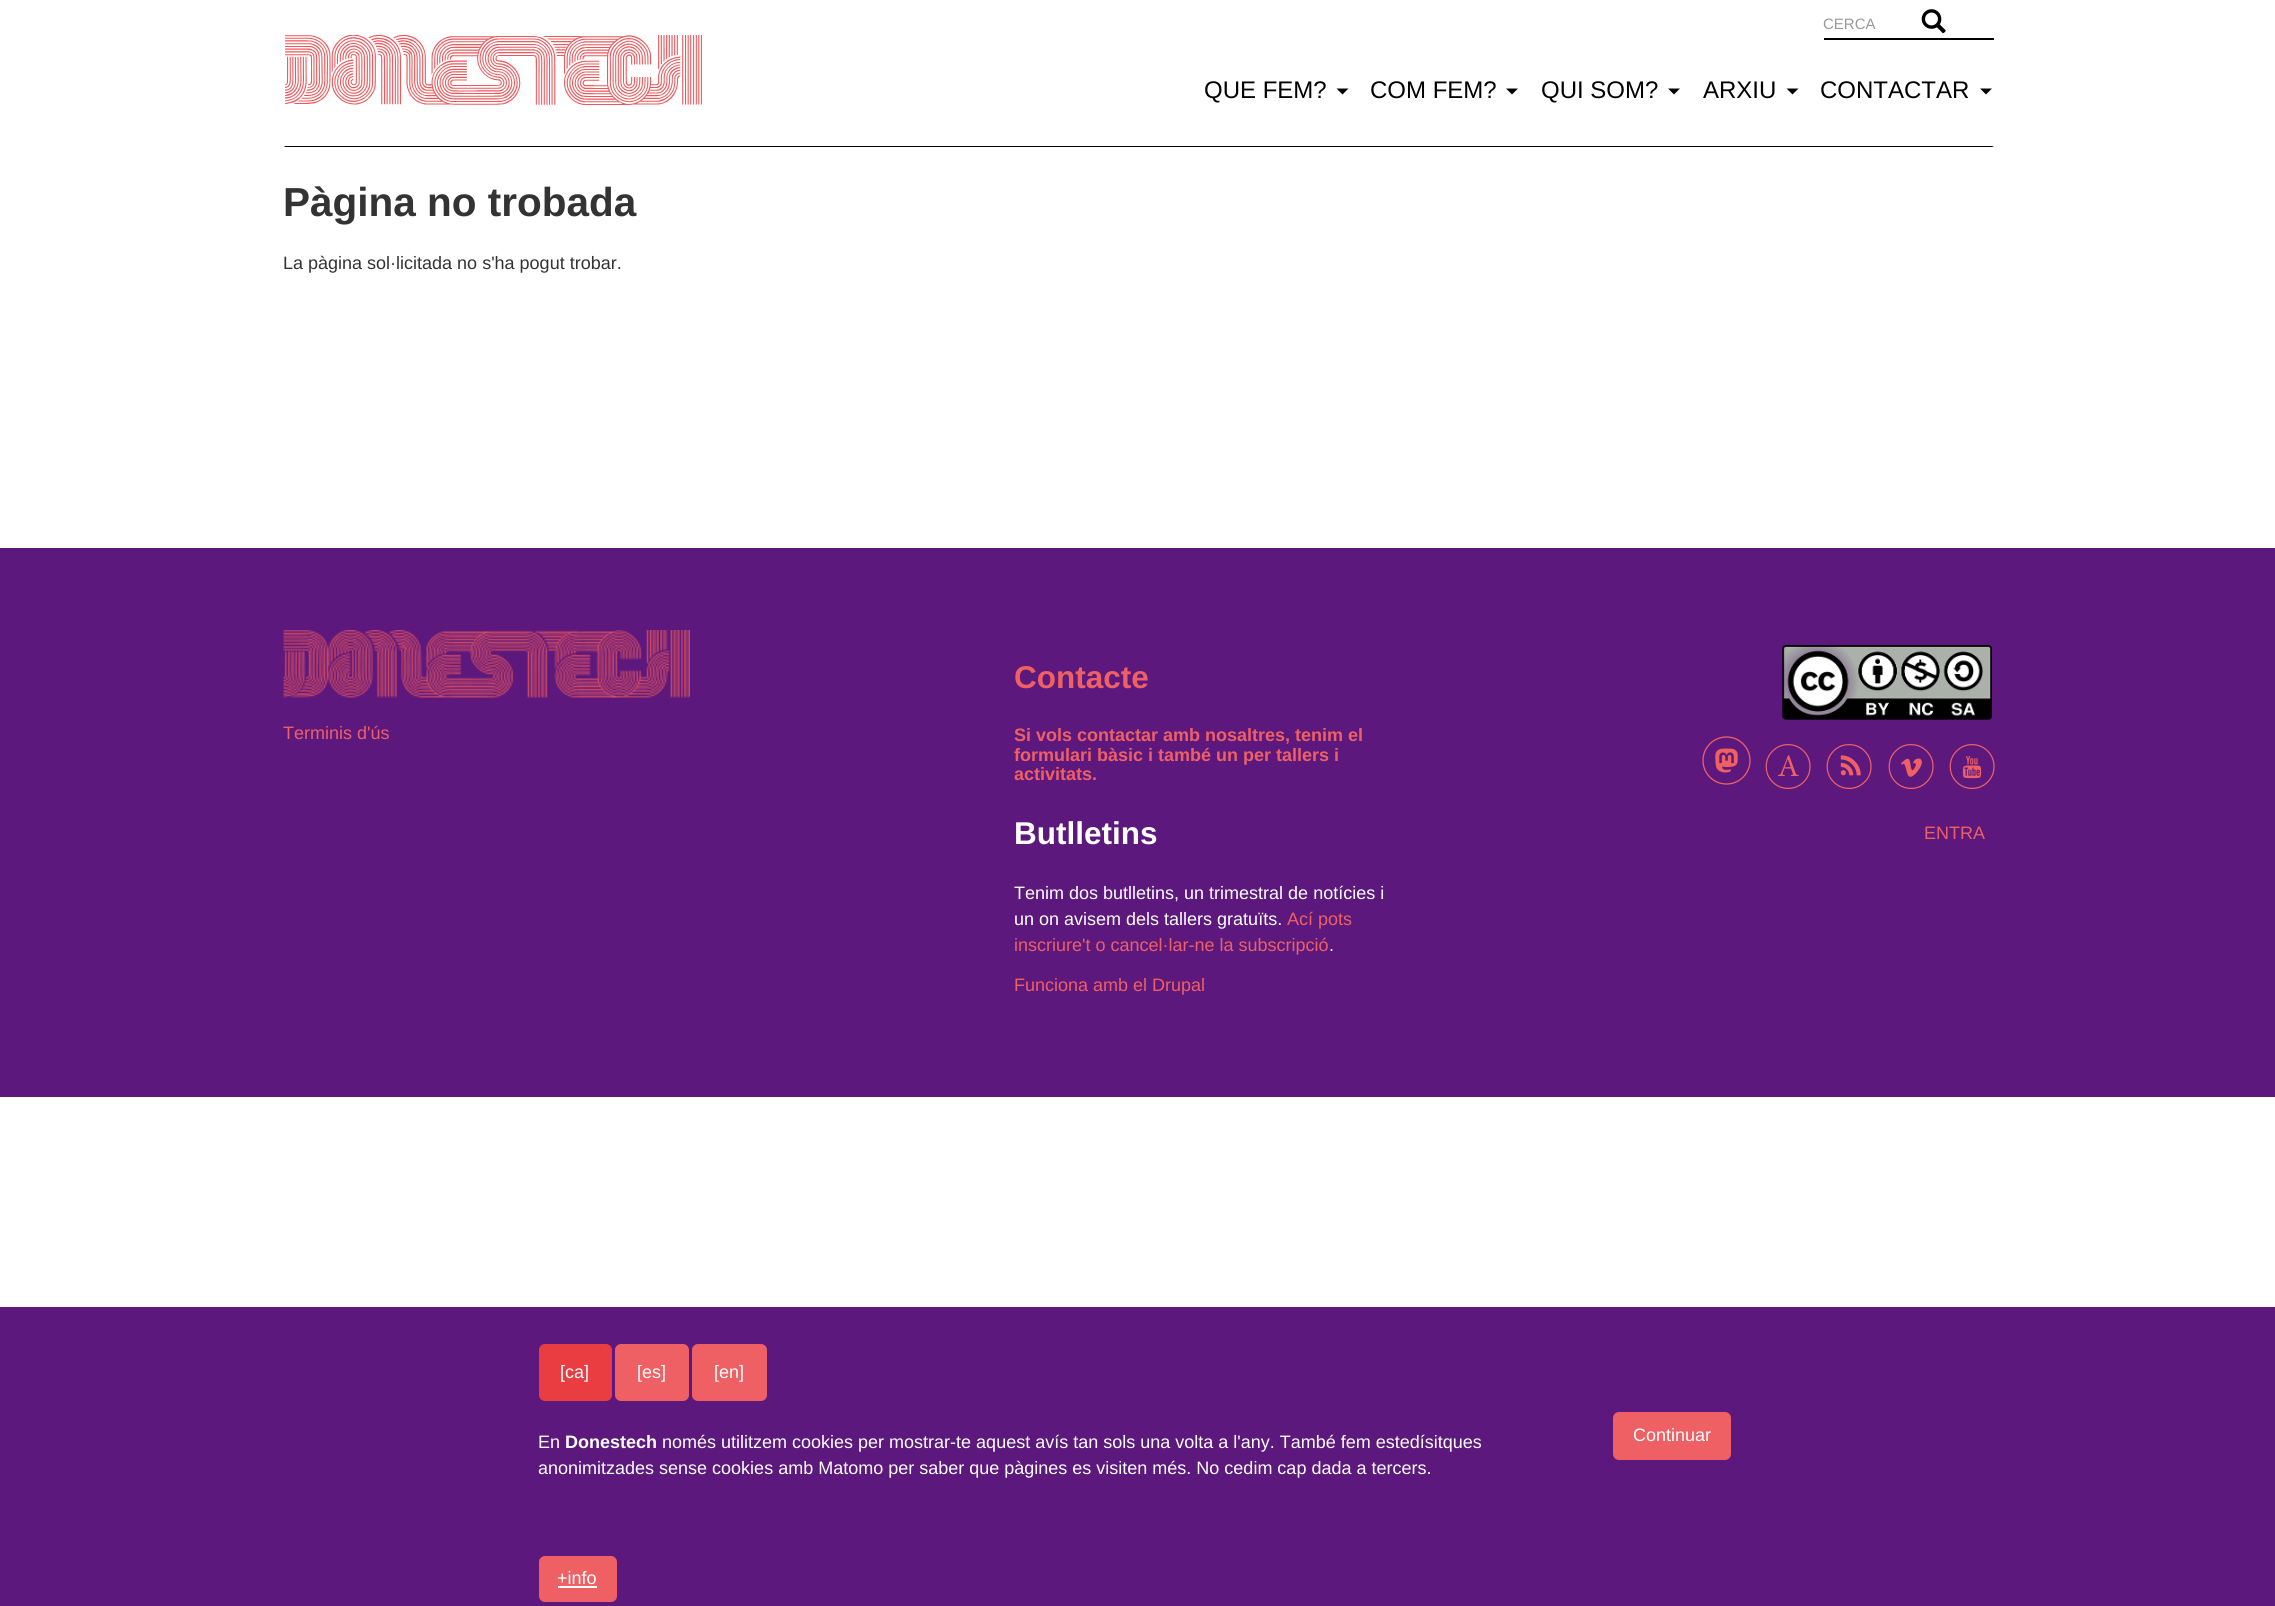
import math
import cairo

surface = cairo.ImageSurface(cairo.FORMAT_RGB24, 2275, 1606)
cr = cairo.Context(surface)
options = cairo.FontOptions()
options.set_hint_metrics(cairo.HINT_METRICS_OFF)
options.set_hint_style(cairo.HINT_STYLE_NONE)
cr.set_font_options(options)
cr.set_miter_limit(4)


def rgb(code):
    cr.set_source_rgb(*(v / 255 for v in bytes.fromhex(code[-6:])))


def rrect(x, y, w, h, r):
    cr.new_sub_path()
    for i, (u, v) in enumerate([(x + w - r, y + h - r), (x + r, y + h - r), (x + r, y + r), (x + w - r, y + r)]):
        cr.arc(u, v, r, i * math.pi / 2, (i + 1) * math.pi / 2)
    cr.close_path()


def image(path, x, y, w, h):
    cr.save()
    cr.set_source_surface(cairo.ImageSurface.create_from_png(path), x, y)
    cr.rectangle(x, y, w, h)
    cr.fill()
    cr.restore()


rgb("#ffffff")
cr.paint()
rgb("#000000")
cr.new_path()
cr.move_to(1994, 147)
cr.line_to(284, 147)
cr.line_to(285, 146)
cr.line_to(1992, 146)
cr.close_path()
cr.fill()
image("img/1.png", 285, 35, 417, 70)
cr.rectangle(1824, 38, 170, 2)
cr.fill()
image("img/2.png", 1921, 9, 25, 25)
cr.new_path()
cr.move_to(1336.5, 88.5)
cr.line_to(1348.5, 88.5)
cr.line_to(1342.5, 94.5)
cr.close_path()
cr.fill()
cr.new_path()
cr.move_to(1506, 88.5)
cr.line_to(1518, 88.5)
cr.line_to(1512, 94.5)
cr.close_path()
cr.fill()
cr.new_path()
cr.move_to(1668, 88.5)
cr.line_to(1680, 88.5)
cr.line_to(1674, 94.5)
cr.close_path()
cr.fill()
cr.new_path()
cr.move_to(1786.5, 88.5)
cr.line_to(1798.5, 88.5)
cr.line_to(1792.5, 94.5)
cr.close_path()
cr.fill()
cr.new_path()
cr.move_to(1980, 88.5)
cr.line_to(1992, 88.5)
cr.line_to(1986, 94.5)
cr.close_path()
cr.fill()
rgb("#5c187d")
cr.rectangle(0, 548, 2275, 549)
cr.fill()
image("img/3.png", 283, 630, 407, 68)
image("img/4.png", 1782, 645, 210, 75)
image("img/5.png", 1702, 736, 49, 49)
cr.rectangle(0, 1307, 2275, 299)
cr.fill()
rgb("#ea3d42")
rrect(539, 1344, 73, 57, 6)
cr.fill()
rgb("#ee6064")
rrect(615, 1344, 74, 57, 6)
cr.fill()
rrect(692, 1344, 75, 57, 6)
cr.fill()
rrect(539, 1556, 78, 46, 6)
cr.fill()
rgb("#ffffff")
cr.rectangle(558, 1586, 39, 2)
cr.fill()
rgb("#ee6064")
rrect(1613, 1412, 118, 48, 6)
cr.fill()
cr.select_font_face("Liberation Sans")
cr.set_font_size(15)
rgb("#999999")
cr.move_to(1823, 29)
cr.show_text("CERCA")
cr.set_font_size(24)
rgb("#000000")
for x, y, s in [
    (1204, 98, "QUE FEM?"),
    (1370, 98, "COM FEM?"),
    (1541, 98, "QUI SOM?"),
    (1703, 98, "ARXIU"),
    (1820, 98, "CONTACTAR"),
]:
    cr.move_to(x, y)
    cr.show_text(s)
cr.select_font_face("Liberation Sans", cairo.FONT_SLANT_NORMAL, cairo.FONT_WEIGHT_BOLD)
cr.set_font_size(40.5)
rgb("#333333")
cr.move_to(283, 216)
cr.show_text("Pàgina no trobada")
cr.select_font_face("Liberation Sans")
cr.set_font_size(18)
cr.move_to(283, 269)
cr.show_text("La pàgina sol·licitada no s'ha pogut trobar.")
rgb("#ee6064")
cr.move_to(283, 739)
cr.show_text("Terminis d'ús")
cr.select_font_face("Liberation Sans", cairo.FONT_SLANT_NORMAL, cairo.FONT_WEIGHT_BOLD)
cr.set_font_size(31.5)
cr.move_to(1014, 688)
cr.show_text("Contacte")
cr.set_font_size(18)
for x, y, s in [
    (1014, 741, "Si vols contactar amb nosaltres, tenim el"),
    (1014, 761, "formulari bàsic i també un per tallers i"),
    (1014, 780, "activitats."),
]:
    cr.move_to(x, y)
    cr.show_text(s)
cr.set_font_size(31.5)
rgb("#ffffff")
cr.move_to(1014, 844)
cr.show_text("Butlletins")
cr.select_font_face("Liberation Sans")
cr.set_font_size(18)
cr.move_to(1014, 899)
cr.show_text("Tenim dos butlletins, un trimestral de notícies i")
cr.move_to(1014, 925)
cr.show_text("un on avisem dels tallers gratuïts.")
rgb("#ee6064")
cr.move_to(1287, 925)
cr.show_text("Ací pots")
cr.move_to(1014, 951)
cr.show_text("inscriure't o cancel·lar-ne la subscripció")
rgb("#ffffff")
cr.move_to(1329, 951)
cr.show_text(".")
rgb("#ee6064")
cr.move_to(1014, 991)
cr.show_text("Funciona amb el Drupal")
cr.select_font_face("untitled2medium")
cr.set_font_size(45)
for x, y, s in [
    (1760, 780, "A"),
    (1821, 780, "B"),
    (1883, 780, "C"),
    (1944, 780, "D"),
]:
    cr.move_to(x, y)
    cr.show_text(s)
cr.select_font_face("Liberation Sans")
cr.set_font_size(18)
cr.move_to(1924, 839)
cr.show_text("ENTRA")
rgb("#ffffff")
for x, y, s in [
    (560, 1378, "[ca]"),
    (637, 1378, "[es]"),
    (714, 1378, "[en]"),
    (538, 1448, "En"),
]:
    cr.move_to(x, y)
    cr.show_text(s)
cr.select_font_face("Liberation Sans", cairo.FONT_SLANT_NORMAL, cairo.FONT_WEIGHT_BOLD)
cr.move_to(565, 1448)
cr.show_text("Donestech")
cr.select_font_face("Liberation Sans")
for x, y, s in [
    (662, 1448, "només utilitzem cookies per mostrar-te aquest avís tan sols una volta a l'any. També fem estedísitques"),
    (538, 1474, "anonimitzades sense cookies amb Matomo per saber que pàgines es visiten més. No cedim cap dada a tercers."),
    (557, 1584, "+info"),
    (1633, 1441, "Continuar"),
]:
    cr.move_to(x, y)
    cr.show_text(s)
surface.write_to_png("page.png")
